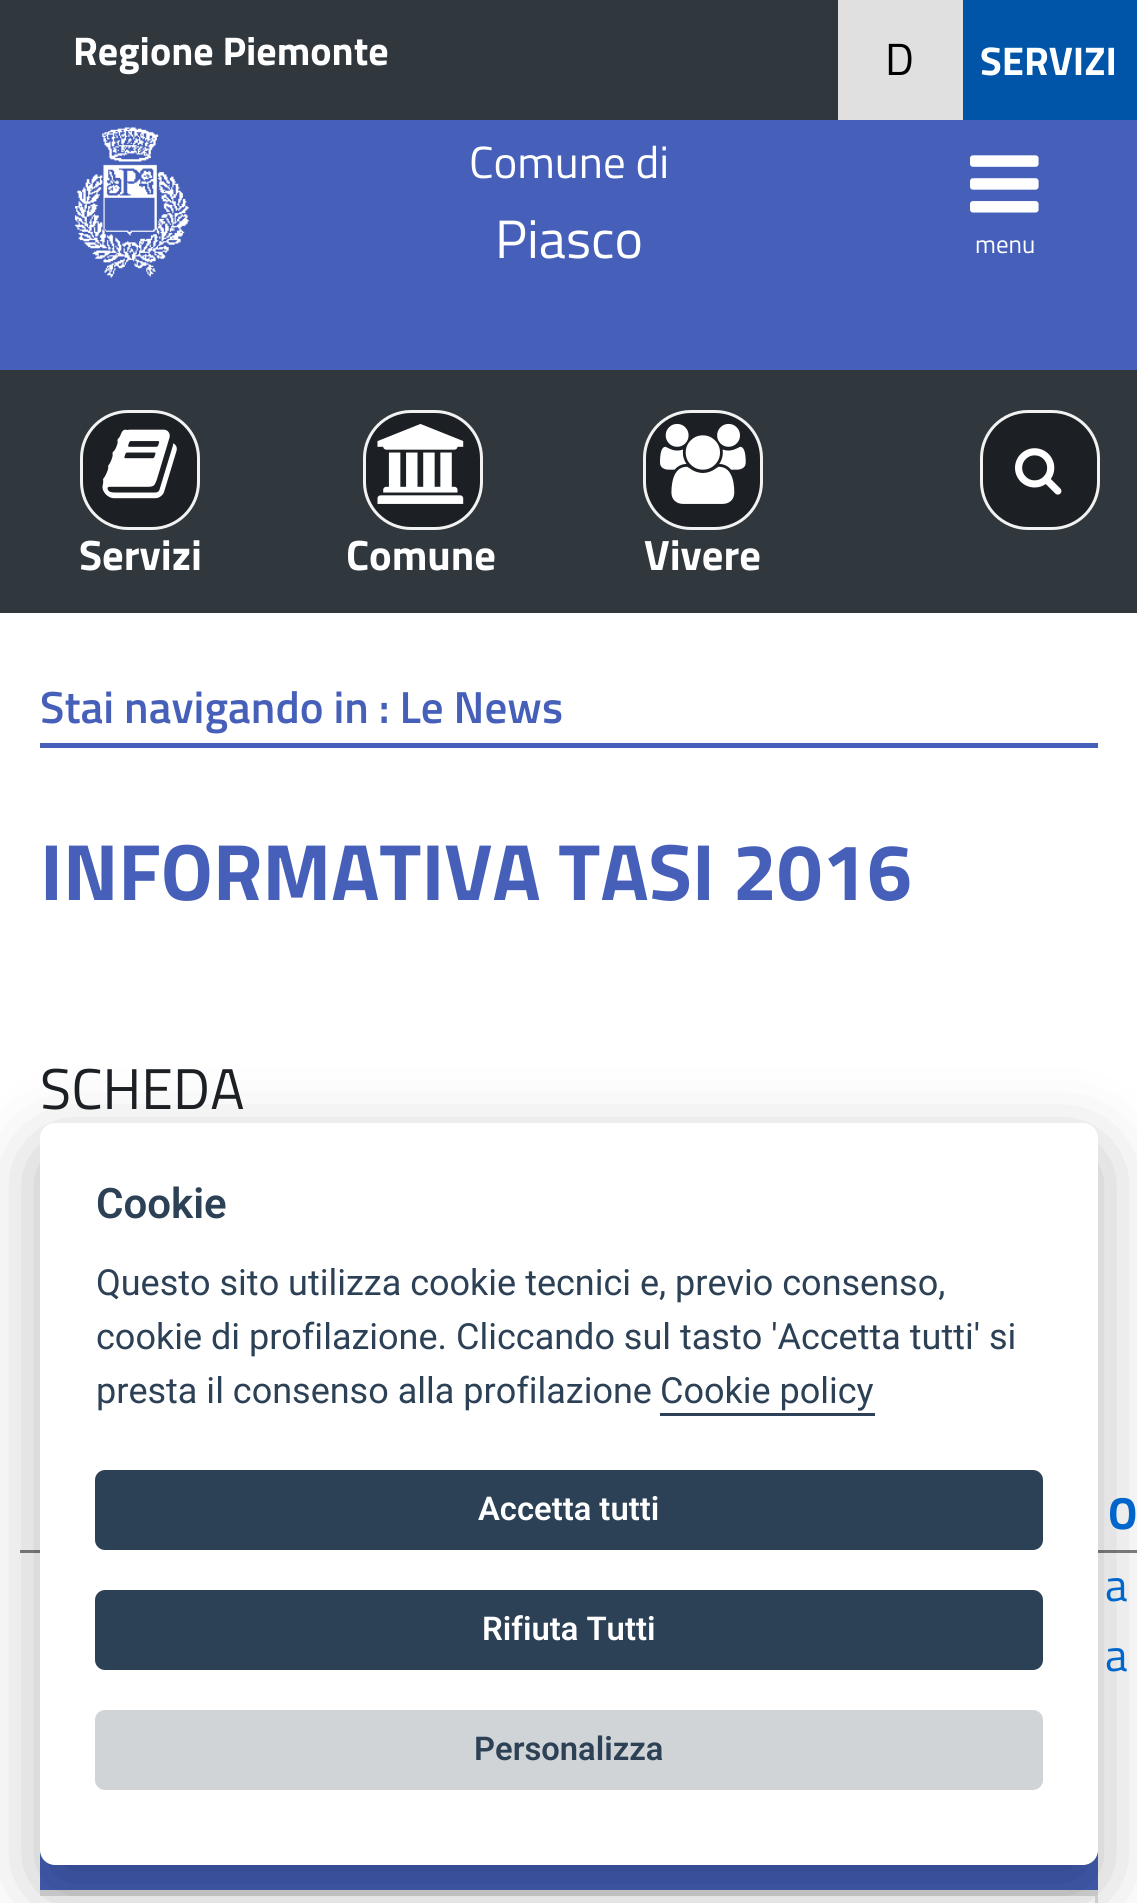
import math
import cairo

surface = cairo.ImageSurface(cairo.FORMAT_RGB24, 1137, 1903)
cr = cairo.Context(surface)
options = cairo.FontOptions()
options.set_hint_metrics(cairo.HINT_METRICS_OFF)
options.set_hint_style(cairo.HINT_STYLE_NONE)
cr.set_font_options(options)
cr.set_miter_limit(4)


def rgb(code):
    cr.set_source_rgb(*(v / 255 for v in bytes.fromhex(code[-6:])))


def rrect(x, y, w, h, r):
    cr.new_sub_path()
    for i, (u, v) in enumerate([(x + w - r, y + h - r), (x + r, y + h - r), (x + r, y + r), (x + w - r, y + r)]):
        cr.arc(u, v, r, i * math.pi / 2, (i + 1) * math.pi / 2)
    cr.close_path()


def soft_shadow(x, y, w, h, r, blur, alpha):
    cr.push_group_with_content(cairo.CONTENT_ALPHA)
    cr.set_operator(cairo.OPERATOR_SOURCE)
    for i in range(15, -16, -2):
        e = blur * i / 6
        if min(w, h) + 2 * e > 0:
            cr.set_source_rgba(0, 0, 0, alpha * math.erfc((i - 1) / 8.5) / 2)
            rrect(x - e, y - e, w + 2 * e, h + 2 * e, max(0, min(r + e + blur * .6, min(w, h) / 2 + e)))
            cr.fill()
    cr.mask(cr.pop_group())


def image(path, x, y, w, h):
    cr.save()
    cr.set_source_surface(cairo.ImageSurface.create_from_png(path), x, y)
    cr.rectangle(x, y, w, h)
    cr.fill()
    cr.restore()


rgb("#4660ba")
cr.paint()
for x, y, w, h, color in [
    (0, 0, 838, 120, "#30373d"),
    (963, 0, 174, 120, "#0055a9"),
    (838, 0, 125, 120, "#e0e0e0"),
]:
    rgb(color)
    cr.rectangle(x, y, w, h)
    cr.fill()
image("img/1.png", 75, 127, 114, 151)
image("img/2.png", 970, 155, 69, 58)
rgb("#ffffff")
cr.rectangle(0, 613, 1137, 1290)
cr.fill()
rgb("#30373d")
cr.rectangle(0, 370, 1137, 243)
cr.fill()
rgb("#1c2024")
rrect(981.5, 411.5, 117, 117, 46.5)
cr.fill_preserve()
rgb("#f2f2f2")
cr.set_line_width(3)
cr.stroke()
image("img/3.png", 1015, 448, 47, 47)
rgb("#1c2024")
rrect(81.5, 411.5, 117, 117, 46.5)
cr.fill_preserve()
rgb("#f2f2f2")
cr.stroke()
image("img/4.png", 102, 429, 75, 70)
rgb("#1c2024")
rrect(364.5, 411.5, 117, 117, 46.5)
cr.fill_preserve()
rgb("#f2f2f2")
cr.stroke()
image("img/5.png", 377, 424, 87, 80)
rgb("#1c2024")
rrect(644.5, 411.5, 117, 117, 46.5)
cr.fill_preserve()
rgb("#f2f2f2")
cr.stroke()
image("img/6.png", 660, 423, 86, 81)
for x, y, w, h, color in [
    (40, 743, 1058, 5, "#4660ba"),
    (20, 1550, 1117, 3, "#808080"),
    (40, 1850, 1058, 40, "#4660ba"),
    (40, 1890, 1058, 6, "#dddddd"),
    (1095, 1893, 3, 10, "#dddddd"),
]:
    rgb(color)
    cr.rectangle(x, y, w, h)
    cr.fill()
rgb("#020203")
soft_shadow(40, 1148, 1058, 742, 15, 37.5, 0.28)
rgb("#ffffff")
rrect(40, 1123, 1058, 742, 15)
cr.fill()
rgb("#2d4156")
cr.rectangle(660, 1413, 215, 3)
cr.fill()
rrect(95, 1470, 948, 80, 10)
cr.fill()
rrect(95, 1590, 948, 80, 10)
cr.fill()
rgb("#d0d4d7")
rrect(95, 1710, 948, 80, 10)
cr.fill()
cr.select_font_face("Titillium Web", cairo.FONT_SLANT_NORMAL, cairo.FONT_WEIGHT_BOLD)
cr.set_font_size(40)
rgb("#ffffff")
cr.move_to(73, 65)
cr.show_text("Regione Piemonte")
cr.move_to(980, 75)
cr.show_text("SERVIZI")
cr.select_font_face("Titillium Web")
cr.set_font_size(45)
rgb("#000000")
cr.move_to(885, 75)
cr.show_text("D")
rgb("#ffffff")
cr.move_to(469, 178)
cr.show_text("Comune di")
cr.set_font_size(54)
cr.move_to(495, 258)
cr.show_text("Piasco")
cr.set_font_size(25)
cr.move_to(975, 253)
cr.show_text("menu")
cr.select_font_face("Titillium Web", cairo.FONT_SLANT_NORMAL, cairo.FONT_WEIGHT_BOLD)
cr.set_font_size(42.5)
for x, y, s in [
    (79, 570, "Servizi"),
    (346, 570, "Comune"),
    (644, 570, "Vivere"),
]:
    cr.move_to(x, y)
    cr.show_text(s)
cr.select_font_face("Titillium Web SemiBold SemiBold")
cr.set_font_size(45)
rgb("#4660ba")
cr.move_to(40, 723)
cr.show_text("Stai navigando in : Le News")
cr.select_font_face("Titillium Web", cairo.FONT_SLANT_NORMAL, cairo.FONT_WEIGHT_BOLD)
cr.set_font_size(80)
cr.move_to(40, 900)
cr.show_text("INFORMATIVA TASI 2016")
cr.select_font_face("Titillium Web")
cr.set_font_size(57.5)
rgb("#1c2024")
cr.move_to(40, 1109)
cr.show_text("SCHEDA")
cr.select_font_face("Titillium Web", cairo.FONT_SLANT_NORMAL, cairo.FONT_WEIGHT_BOLD)
cr.set_font_size(45)
rgb("#0066cc")
cr.move_to(1108, 1529)
cr.show_text("O")
cr.select_font_face("Titillium Web")
cr.move_to(1105, 1601)
cr.show_text("a")
cr.move_to(1105, 1671)
cr.show_text("a")
cr.select_font_face("Roboto SemiBold")
cr.set_font_size(42)
rgb("#2d4156")
cr.move_to(96, 1218)
cr.show_text("Cookie")
cr.select_font_face("Roboto")
cr.set_font_size(36)
for x, y, s in [
    (96, 1295, "Questo sito utilizza cookie tecnici e, previo consenso,"),
    (96, 1349, "cookie di profilazione. Cliccando sul tasto 'Accetta tutti' si"),
    (96, 1403, "presta il consenso alla profilazione"),
    (660, 1403, "Cookie policy"),
]:
    cr.move_to(x, y)
    cr.show_text(s)
cr.select_font_face("Roboto SemiBold")
cr.set_font_size(32.75)
rgb("#ffffff")
cr.move_to(478, 1520)
cr.show_text("Accetta tutti")
cr.move_to(482, 1640)
cr.show_text("Rifiuta Tutti")
rgb("#2d4156")
cr.move_to(474, 1760)
cr.show_text("Personalizza")
surface.write_to_png("page.png")
